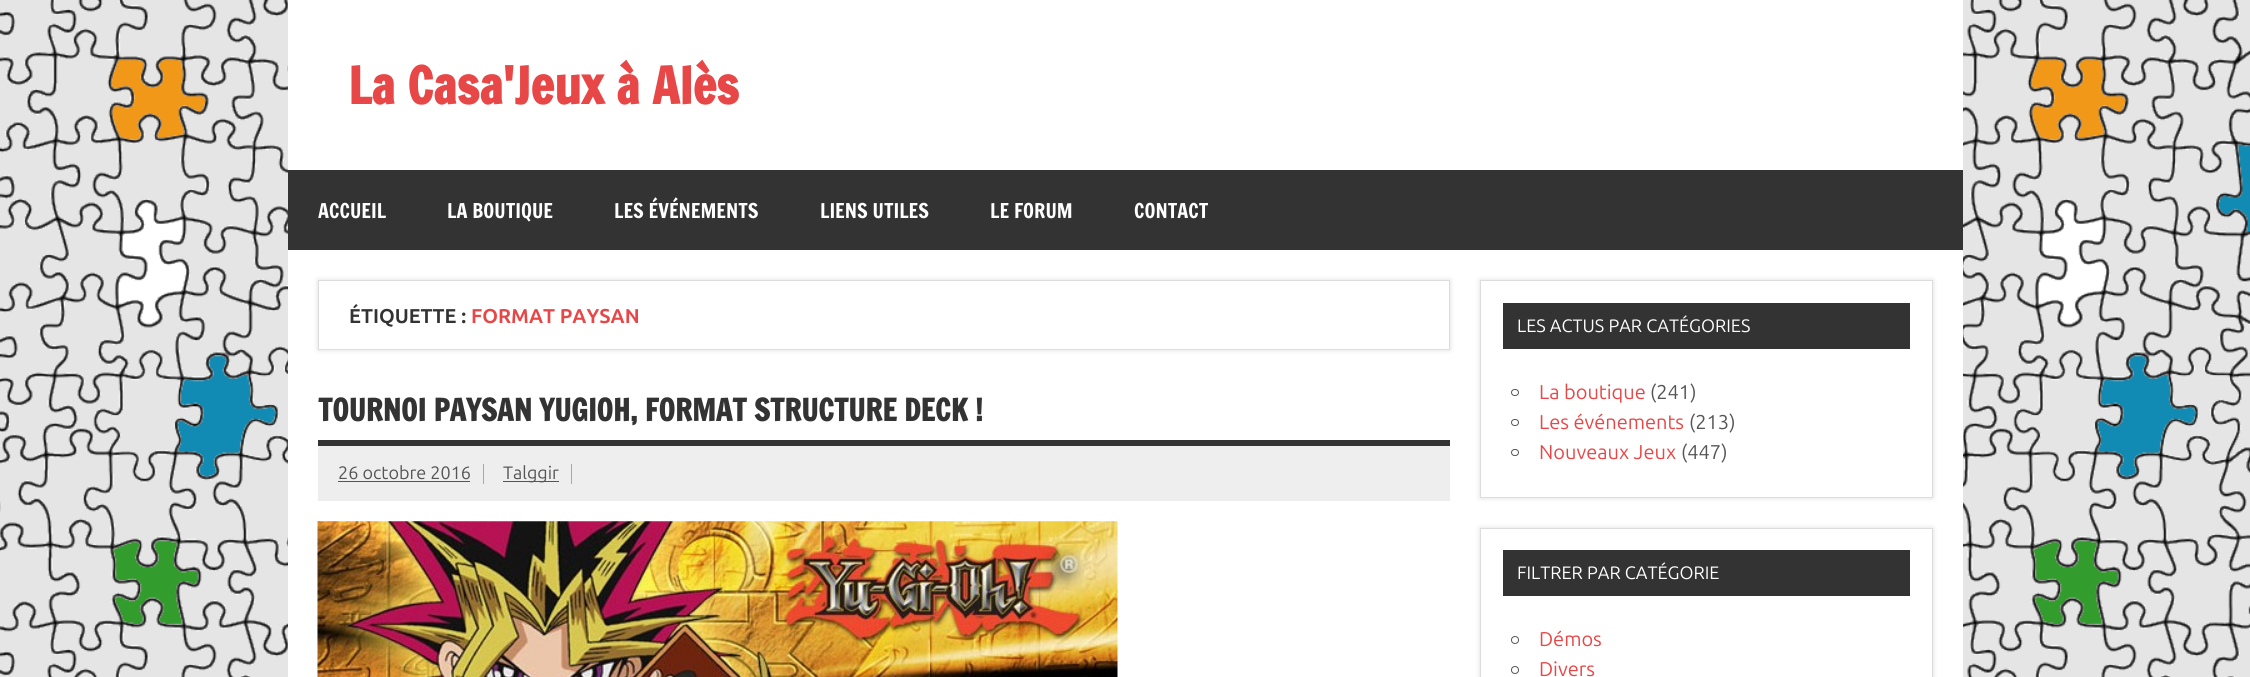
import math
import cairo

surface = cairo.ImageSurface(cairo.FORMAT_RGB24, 2250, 677)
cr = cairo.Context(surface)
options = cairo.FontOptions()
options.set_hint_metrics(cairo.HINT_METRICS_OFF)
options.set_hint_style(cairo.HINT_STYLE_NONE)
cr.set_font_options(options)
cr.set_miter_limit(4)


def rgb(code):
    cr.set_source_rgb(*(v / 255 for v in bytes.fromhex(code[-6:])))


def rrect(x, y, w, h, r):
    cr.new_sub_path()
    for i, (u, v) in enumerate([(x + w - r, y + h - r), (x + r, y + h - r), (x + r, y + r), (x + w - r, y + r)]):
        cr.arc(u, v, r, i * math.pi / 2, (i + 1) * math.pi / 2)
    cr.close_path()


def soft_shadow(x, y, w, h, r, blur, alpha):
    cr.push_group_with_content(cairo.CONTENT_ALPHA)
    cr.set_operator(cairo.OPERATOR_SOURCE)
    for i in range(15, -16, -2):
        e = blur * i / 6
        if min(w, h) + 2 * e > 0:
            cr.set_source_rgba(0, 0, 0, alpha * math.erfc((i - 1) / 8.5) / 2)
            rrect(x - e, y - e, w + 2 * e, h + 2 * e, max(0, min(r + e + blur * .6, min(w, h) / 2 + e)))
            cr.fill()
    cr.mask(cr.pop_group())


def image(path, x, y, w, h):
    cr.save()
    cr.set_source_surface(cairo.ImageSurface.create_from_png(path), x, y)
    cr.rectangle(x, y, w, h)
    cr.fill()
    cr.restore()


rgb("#e5e5e5")
cr.paint()
image("img/1.png", 0, 0, 2250, 677)
rgb("#ffffff")
cr.rectangle(288, 0, 1675, 677)
cr.fill()
rgb("#333333")
cr.rectangle(288, 170, 1675, 80)
cr.fill()
cr.save()
cr.set_fill_rule(cairo.FILL_RULE_EVEN_ODD)
cr.new_path()
cr.move_to(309, 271)
cr.line_to(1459, 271)
cr.line_to(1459, 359)
cr.line_to(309, 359)
cr.close_path()
cr.move_to(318, 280)
cr.line_to(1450, 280)
cr.line_to(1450, 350)
cr.line_to(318, 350)
cr.close_path()
cr.clip()
rgb("#dddddd")
soft_shadow(318, 280, 1132, 70, 0, 2.5, 1)
cr.restore()
cr.rectangle(318.5, 280.5, 1131, 69)
rgb("#dddddd")
cr.set_line_width(1)
cr.stroke()
for x, y, w, h, color in [
    (318, 440, 1132, 6, "#333333"),
    (318, 446, 1132, 55, "#eeeeee"),
    (483, 464, 1, 20, "#aaaaaa"),
    (338, 481, 132, 1, "#555555"),
    (571, 464, 1, 20, "#aaaaaa"),
    (503, 481, 56, 1, "#555555"),
]:
    rgb(color)
    cr.rectangle(x, y, w, h)
    cr.fill()
image("img/2.png", 317, 521, 801, 156)
rgb("#dddddd")
soft_shadow(1480, 280, 453, 218, 0, 2.5, 1)
rgb("#ffffff")
cr.rectangle(1480.5, 280.5, 452, 217)
cr.fill_preserve()
rgb("#dddddd")
cr.stroke()
rgb("#333333")
cr.rectangle(1503, 303, 407, 46)
cr.fill()
rrect(1511.5, 389.5, 7, 6, 3)
rgb("#555555")
cr.stroke()
rrect(1511.5, 419.5, 7, 6, 3)
cr.stroke()
rrect(1511.5, 449.5, 7, 6, 3)
cr.stroke()
rgb("#dddddd")
soft_shadow(1480, 528, 453, 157, 0, 2.5, 1)
rgb("#ffffff")
cr.rectangle(1480.5, 528.5, 452, 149)
cr.fill_preserve()
rgb("#dddddd")
cr.stroke()
rgb("#333333")
cr.rectangle(1503, 550, 407, 46)
cr.fill()
cr.arc(1515, 640, 3.5, 0, 2 * math.pi)
rgb("#555555")
cr.stroke()
cr.arc(1515, 670, 3.5, 0, 2 * math.pi)
cr.stroke()
cr.select_font_face("Francois One", cairo.FONT_SLANT_NORMAL, cairo.FONT_WEIGHT_BOLD)
cr.set_font_size(50)
rgb("#e84747")
cr.move_to(348, 104)
cr.show_text("La Casa'Jeux à Alès")
cr.select_font_face("Francois One")
cr.set_font_size(20)
rgb("#ffffff")
for x, y, s in [
    (318, 218, "ACCUEIL"),
    (447, 218, "LA BOUTIQUE"),
    (614, 218, "LES ÉVÉNEMENTS"),
    (820, 218, "LIENS UTILES"),
    (990, 218, "LE FORUM"),
    (1134, 218, "CONTACT"),
]:
    cr.move_to(x, y)
    cr.show_text(s)
cr.select_font_face("Ubuntu", cairo.FONT_SLANT_NORMAL, cairo.FONT_WEIGHT_BOLD)
rgb("#333333")
cr.move_to(349, 323)
cr.show_text("ÉTIQUETTE :")
rgb("#e84747")
cr.move_to(471, 323)
cr.show_text("FORMAT PAYSAN")
cr.select_font_face("Francois One", cairo.FONT_SLANT_NORMAL, cairo.FONT_WEIGHT_BOLD)
cr.set_font_size(30)
rgb("#333333")
cr.move_to(318, 421)
cr.show_text("TOURNOI PAYSAN YUGIOH, FORMAT STRUCTURE DECK !")
cr.select_font_face("Ubuntu")
cr.set_font_size(18)
rgb("#555555")
cr.move_to(338, 479)
cr.show_text("26 octobre 2016")
cr.move_to(503, 479)
cr.show_text("Talggir")
rgb("#ffffff")
cr.move_to(1517, 332)
cr.show_text("LES ACTUS PAR CATÉGORIES")
cr.set_font_size(20)
rgb("#e84747")
cr.move_to(1539, 399)
cr.show_text("La boutique")
rgb("#555555")
cr.move_to(1650, 399)
cr.show_text("(241)")
rgb("#e84747")
cr.move_to(1539, 429)
cr.show_text("Les événements")
rgb("#555555")
cr.move_to(1689, 429)
cr.show_text("(213)")
rgb("#e84747")
cr.move_to(1539, 459)
cr.show_text("Nouveaux Jeux")
rgb("#555555")
cr.move_to(1681, 459)
cr.show_text("(447)")
cr.set_font_size(18)
rgb("#ffffff")
cr.move_to(1517, 579)
cr.show_text("FILTRER PAR CATÉGORIE")
cr.set_font_size(20)
rgb("#e84747")
cr.move_to(1539, 646)
cr.show_text("Démos")
cr.move_to(1539, 676)
cr.show_text("Divers")
surface.write_to_png("page.png")
